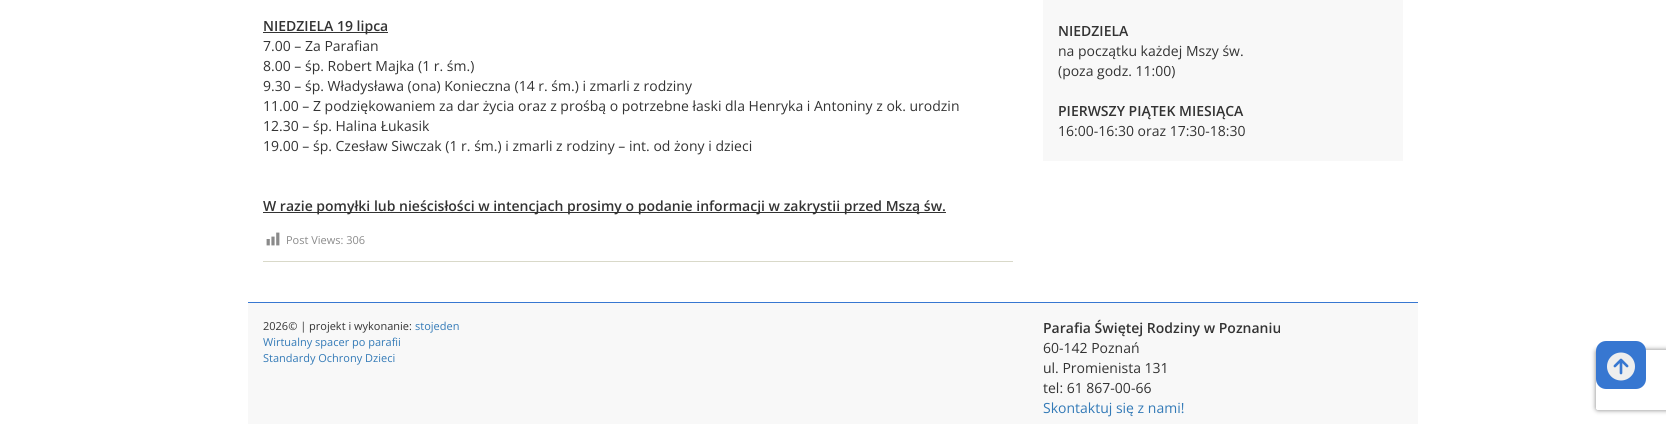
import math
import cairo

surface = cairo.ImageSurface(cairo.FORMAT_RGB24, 1666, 424)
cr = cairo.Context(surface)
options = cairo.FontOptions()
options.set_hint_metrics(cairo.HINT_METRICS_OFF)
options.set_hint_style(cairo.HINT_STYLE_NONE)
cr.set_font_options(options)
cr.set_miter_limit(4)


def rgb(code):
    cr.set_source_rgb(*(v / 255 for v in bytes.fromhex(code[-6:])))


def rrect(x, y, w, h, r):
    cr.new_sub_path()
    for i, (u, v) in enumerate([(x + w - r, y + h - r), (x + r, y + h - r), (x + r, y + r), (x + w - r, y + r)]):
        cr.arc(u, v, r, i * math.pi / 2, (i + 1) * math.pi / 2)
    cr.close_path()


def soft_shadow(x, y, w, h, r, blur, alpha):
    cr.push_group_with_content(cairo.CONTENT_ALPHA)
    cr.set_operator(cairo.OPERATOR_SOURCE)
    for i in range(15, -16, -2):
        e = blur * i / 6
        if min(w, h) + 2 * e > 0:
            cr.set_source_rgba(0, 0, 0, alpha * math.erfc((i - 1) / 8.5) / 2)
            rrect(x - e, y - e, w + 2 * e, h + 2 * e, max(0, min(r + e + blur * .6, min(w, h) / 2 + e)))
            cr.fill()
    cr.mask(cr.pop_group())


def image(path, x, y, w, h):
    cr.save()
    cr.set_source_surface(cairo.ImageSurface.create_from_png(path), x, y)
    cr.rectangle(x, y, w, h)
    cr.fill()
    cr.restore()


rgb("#ffffff")
cr.paint()
for x, y, w, h, color in [
    (263, 32, 125, 1, "#333333"),
    (263, 212, 683, 1, "#333333"),
    (263, 261, 750, 1, "#d9d9c9"),
]:
    rgb(color)
    cr.rectangle(x, y, w, h)
    cr.fill()
image("img/1.png", 266, 232, 14, 14)
for x, y, w, h, color in [
    (1043, 0, 360, 161, "#f8f8f8"),
    (248, 303, 1170, 121, "#f8f8f8"),
    (248, 302, 1170, 1, "#3777d1"),
]:
    rgb(color)
    cr.rectangle(x, y, w, h)
    cr.fill()
cr.save()
cr.set_fill_rule(cairo.FILL_RULE_EVEN_ODD)
cr.new_path()
cr.move_to(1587, 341)
cr.line_to(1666, 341)
cr.line_to(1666, 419)
cr.line_to(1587, 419)
cr.close_path()
cr.move_to(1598, 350)
cr.line_to(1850, 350)
cr.curve_to(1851, 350, 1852, 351, 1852, 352)
cr.line_to(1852, 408)
cr.curve_to(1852, 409, 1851, 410, 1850, 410)
cr.line_to(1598, 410)
cr.curve_to(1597, 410, 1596, 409, 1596, 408)
cr.line_to(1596, 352)
cr.curve_to(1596, 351, 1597, 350, 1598, 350)
cr.close_path()
cr.clip()
rgb("#808080")
soft_shadow(1596, 350, 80, 60, 2, 2.5, 1)
cr.restore()
rrect(1596, 341, 50, 48, 10)
cr.fill()
image("img/2.png", 1607, 352, 28, 29)
cr.select_font_face("Open Sans SemiBold")
cr.set_font_size(14)
rgb("#333333")
cr.move_to(263, 31)
cr.show_text("NIEDZIELA 19 lipca")
cr.select_font_face("Open Sans")
for x, y, s in [
    (263, 51, "7.00 – Za Parafian"),
    (263, 71, "8.00 – śp. Robert Majka (1 r. śm.)"),
    (263, 91, "9.30 – śp. Władysława (ona) Konieczna (14 r. śm.) i zmarli z rodziny"),
    (263, 111, "11.00 – Z podziękowaniem za dar życia oraz z prośbą o potrzebne łaski dla Henryka i Antoniny z ok. urodzin"),
    (263, 131, "12.30 – śp. Halina Łukasik"),
    (263, 151, "19.00 – śp. Czesław Siwczak (1 r. śm.) i zmarli z rodziny – int. od żony i dzieci"),
]:
    cr.move_to(x, y)
    cr.show_text(s)
cr.select_font_face("Open Sans SemiBold")
cr.move_to(263, 211)
cr.show_text("W razie pomyłki lub nieścisłości w intencjach prosimy o podanie informacji w zakrystii przed Mszą św.")
cr.select_font_face("Open Sans")
cr.set_font_size(11)
rgb("#8a8a8a")
cr.move_to(286, 244)
cr.show_text("Post Views: 306")
cr.select_font_face("Open Sans SemiBold")
cr.set_font_size(14)
rgb("#333333")
cr.move_to(1058, 36)
cr.show_text("NIEDZIELA")
cr.select_font_face("Open Sans")
cr.move_to(1058, 56)
cr.show_text("na początku każdej Mszy św.")
cr.move_to(1058, 76)
cr.show_text("(poza godz. 11:00)")
cr.select_font_face("Open Sans SemiBold")
cr.move_to(1058, 116)
cr.show_text("PIERWSZY PIĄTEK MIESIĄCA")
cr.select_font_face("Open Sans")
cr.move_to(1058, 136)
cr.show_text("16:00-16:30 oraz 17:30-18:30")
cr.set_font_size(11)
cr.move_to(263, 330)
cr.show_text("2026© | projekt i wykonanie:")
rgb("#337ab7")
for x, y, s in [
    (415, 330, "stojeden"),
    (263, 346, "Wirtualny spacer po parafii"),
    (263, 362, "Standardy Ochrony Dzieci"),
]:
    cr.move_to(x, y)
    cr.show_text(s)
cr.select_font_face("Open Sans SemiBold")
cr.set_font_size(14)
rgb("#333333")
cr.move_to(1043, 333)
cr.show_text("Parafia Świętej Rodziny w Poznaniu")
cr.select_font_face("Open Sans")
for x, y, s in [
    (1043, 353, "60-142 Poznań"),
    (1043, 373, "ul. Promienista 131"),
    (1043, 393, "tel: 61 867-00-66"),
]:
    cr.move_to(x, y)
    cr.show_text(s)
rgb("#337ab7")
cr.move_to(1043, 413)
cr.show_text("Skontaktuj się z nami!")
surface.write_to_png("page.png")
